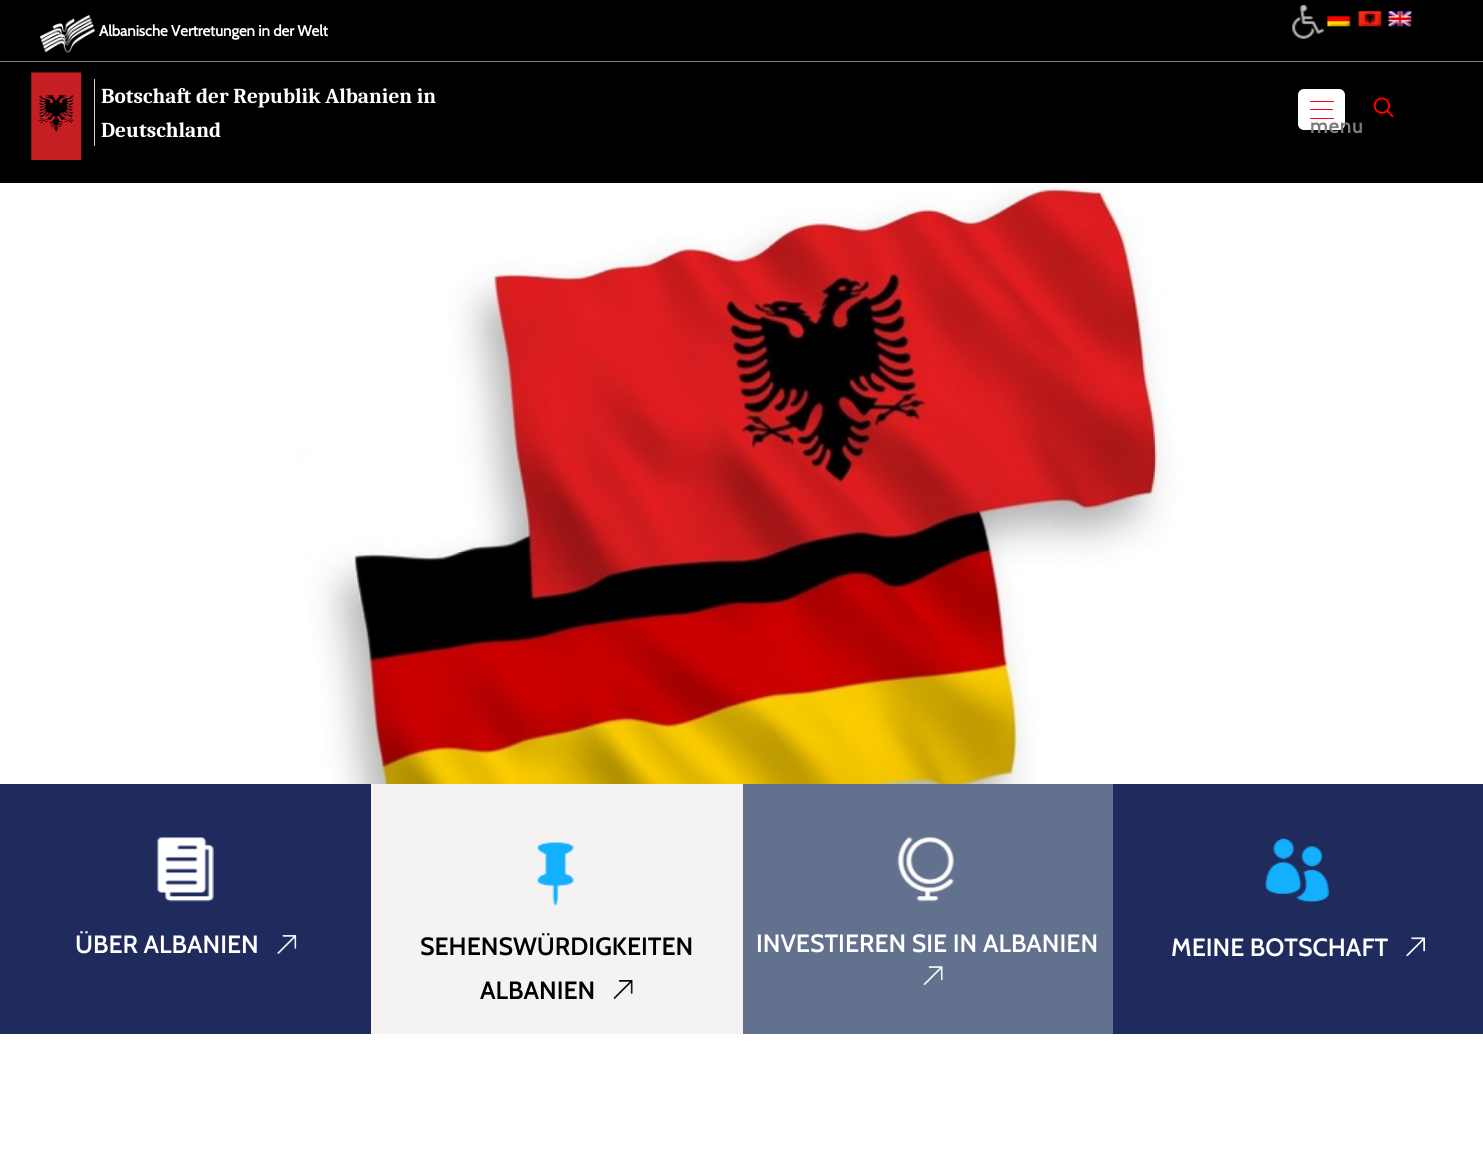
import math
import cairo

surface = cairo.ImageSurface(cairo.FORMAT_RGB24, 1483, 1164)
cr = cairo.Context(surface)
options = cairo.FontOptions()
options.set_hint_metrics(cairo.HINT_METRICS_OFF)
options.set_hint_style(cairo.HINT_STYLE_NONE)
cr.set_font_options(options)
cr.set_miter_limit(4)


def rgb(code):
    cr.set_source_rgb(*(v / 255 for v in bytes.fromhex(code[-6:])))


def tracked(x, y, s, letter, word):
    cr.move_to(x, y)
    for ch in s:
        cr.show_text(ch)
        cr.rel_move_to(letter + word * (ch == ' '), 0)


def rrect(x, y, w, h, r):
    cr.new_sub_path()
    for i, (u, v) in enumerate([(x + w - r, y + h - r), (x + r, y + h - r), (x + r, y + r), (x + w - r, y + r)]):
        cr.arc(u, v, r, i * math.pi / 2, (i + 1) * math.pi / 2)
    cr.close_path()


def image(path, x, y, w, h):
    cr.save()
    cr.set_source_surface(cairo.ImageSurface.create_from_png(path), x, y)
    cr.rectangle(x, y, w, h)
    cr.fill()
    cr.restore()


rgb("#ffffff")
cr.paint()
rgb("#000000")
cr.rectangle(0, 0, 1483, 183)
cr.fill()
rgb("#808080")
cr.rectangle(0, 61, 1483, 1)
cr.fill()
image("img/1.png", 40, 15, 55, 38)
image("img/2.png", 1292, 5, 33, 34)
image("img/3.png", 1327, 16, 24, 11)
image("img/4.png", 1358, 11, 24, 16)
image("img/5.png", 1388, 11, 24, 16)
image("img/6.png", 31, 72, 51, 88)
rgb("#d3d3d3")
cr.rectangle(94, 79, 1, 67)
cr.fill()
image("img/7.png", 1373, 97, 21, 21)
rgb("#ffffff")
rrect(1298, 89, 47, 41, 6)
cr.fill()
rgb("#ff0000")
cr.rectangle(1310, 101, 24, 1)
cr.fill()
cr.rectangle(1310, 118, 24, 1)
cr.fill()
rrect(1310, 109, 23, 1, 0.5)
cr.fill()
image("img/8.png", 0, 183, 1483, 601)
rgb("#202b5d")
cr.rectangle(0, 784, 371, 250)
cr.fill()
image("img/9.png", 157, 837, 57, 65)
image("img/10.png", 277, 935, 20, 19)
rgb("#f4f2f2")
cr.rectangle(371, 784, 372, 250)
cr.fill()
image("img/11.png", 537, 842, 37, 64)
image("img/12.png", 613, 980, 20, 19)
rgb("#62718d")
cr.rectangle(743, 784, 370, 250)
cr.fill()
image("img/13.png", 897, 837, 57, 65)
image("img/14.png", 923, 966, 20, 19)
rgb("#202b5d")
cr.rectangle(1113, 784, 370, 250)
cr.fill()
image("img/15.png", 1265, 838, 65, 65)
image("img/16.png", 1406, 937, 19, 20)
cr.select_font_face("Cabin", cairo.FONT_SLANT_NORMAL, cairo.FONT_WEIGHT_BOLD)
cr.set_font_size(15)
rgb("#ffffff")
cr.move_to(99, 36)
cr.show_text("Albanische Vertretungen in der Welt")
cr.select_font_face("Caladea", cairo.FONT_SLANT_NORMAL, cairo.FONT_WEIGHT_BOLD)
cr.set_font_size(21.25)
cr.move_to(101, 103)
cr.show_text("Botschaft der Republik Albanien in")
cr.move_to(101, 137)
cr.show_text("Deutschland")
cr.select_font_face("Cabin", cairo.FONT_SLANT_NORMAL, cairo.FONT_WEIGHT_BOLD)
cr.set_font_size(20)
rgb("#7b7b7b")
tracked(1310, 133, "menu", 1, 0)
cr.select_font_face("Cabin SemiBold")
cr.set_font_size(25)
rgb("#ffffff")
cr.move_to(75, 953)
cr.show_text("ÜBER ALBANIEN")
rgb("#000000")
cr.move_to(420, 955)
cr.show_text("SEHENSWÜRDIGKEITEN")
cr.move_to(480, 999)
cr.show_text("ALBANIEN")
rgb("#ffffff")
cr.move_to(756, 952)
cr.show_text("INVESTIEREN SIE IN ALBANIEN")
cr.move_to(1171, 956)
cr.show_text("MEINE BOTSCHAFT")
surface.write_to_png("page.png")
